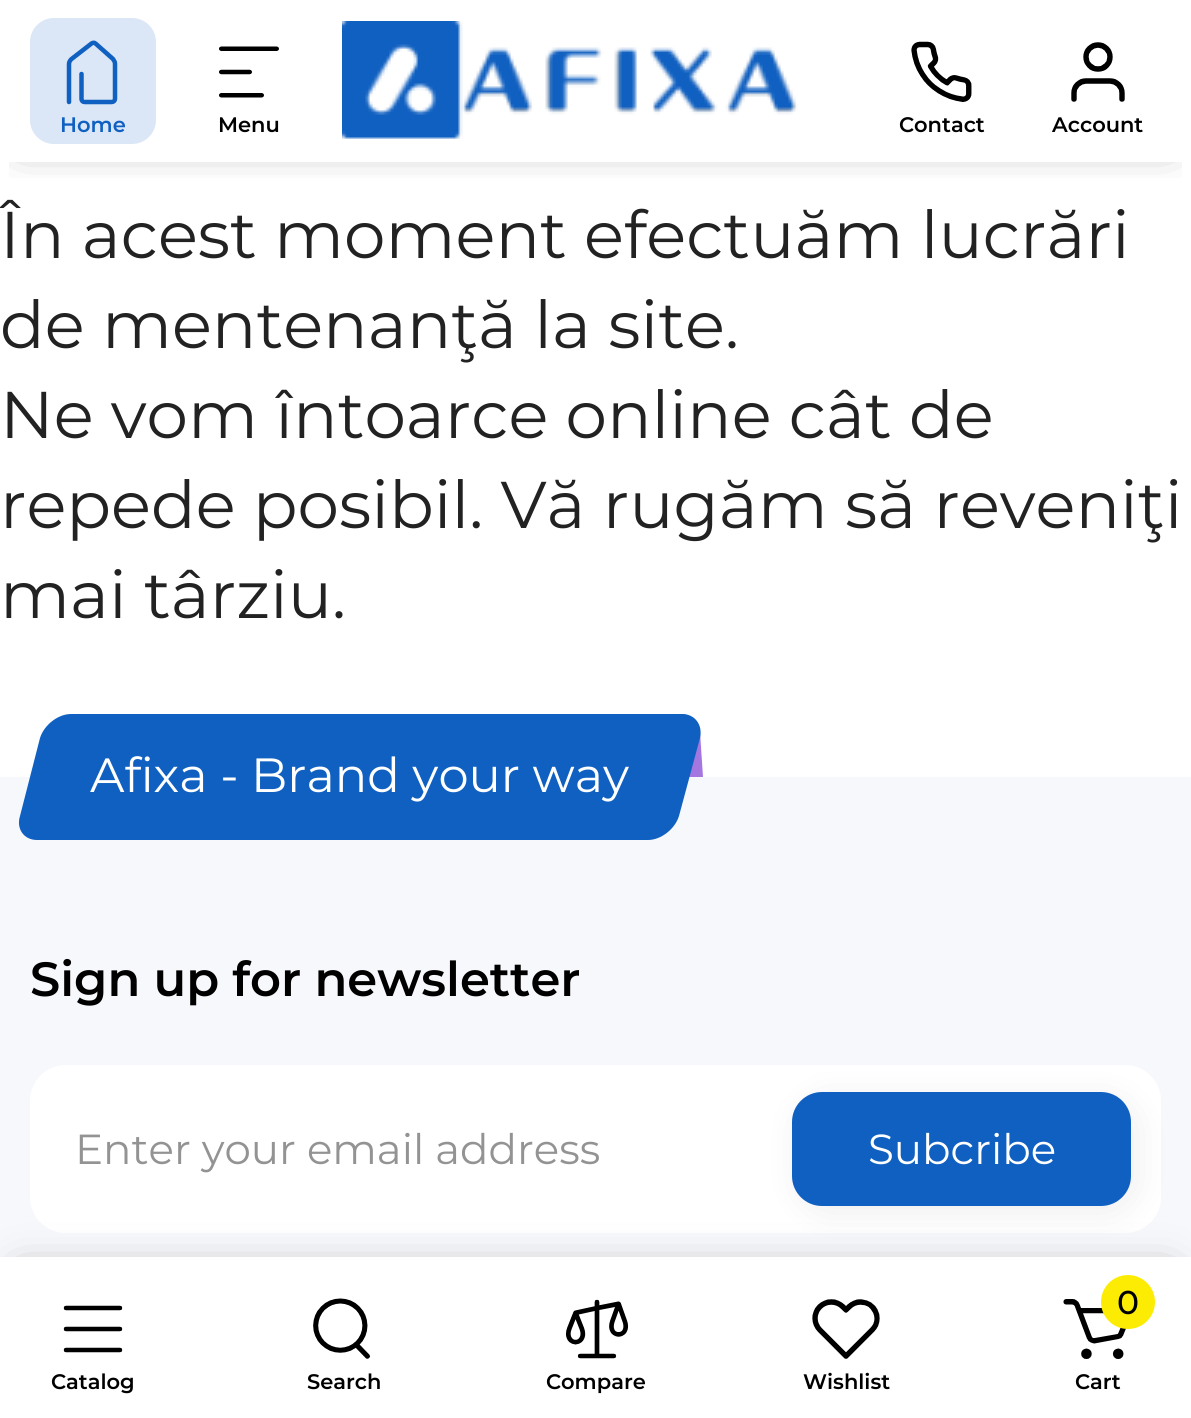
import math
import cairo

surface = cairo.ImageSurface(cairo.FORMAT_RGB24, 1191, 1418)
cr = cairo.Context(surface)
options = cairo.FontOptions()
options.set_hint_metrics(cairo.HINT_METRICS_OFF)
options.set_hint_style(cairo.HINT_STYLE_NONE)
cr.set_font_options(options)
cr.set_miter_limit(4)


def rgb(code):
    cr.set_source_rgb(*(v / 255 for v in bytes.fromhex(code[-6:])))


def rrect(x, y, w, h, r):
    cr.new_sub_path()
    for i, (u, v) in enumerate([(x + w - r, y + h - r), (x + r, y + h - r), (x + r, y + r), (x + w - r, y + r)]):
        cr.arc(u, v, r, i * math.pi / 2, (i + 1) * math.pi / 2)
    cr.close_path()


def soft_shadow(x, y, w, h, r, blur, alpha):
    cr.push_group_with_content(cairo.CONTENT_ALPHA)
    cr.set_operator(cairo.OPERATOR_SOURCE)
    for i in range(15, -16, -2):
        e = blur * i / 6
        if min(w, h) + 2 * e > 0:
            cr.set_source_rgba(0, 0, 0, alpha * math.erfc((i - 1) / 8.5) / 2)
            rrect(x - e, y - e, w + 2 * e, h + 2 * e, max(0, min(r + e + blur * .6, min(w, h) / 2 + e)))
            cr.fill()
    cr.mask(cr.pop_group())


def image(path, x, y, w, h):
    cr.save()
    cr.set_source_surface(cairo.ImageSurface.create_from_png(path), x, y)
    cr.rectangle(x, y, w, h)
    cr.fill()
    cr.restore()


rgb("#ffffff")
cr.paint()
cr.save()
cr.rectangle(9, 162, 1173, 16)
cr.clip()
rgb("#000000")
soft_shadow(21, 21, 1149, 120, 0, 22.5, 0.4)
cr.restore()
rgb("#dbe7f6")
rrect(30, 18, 126, 126, 24)
cr.fill()
cr.new_path()
cr.move_to(69, 102)
cr.line_to(69, 64)
cr.curve_to(69, 62, 70, 60.5, 71.5, 59)
cr.line_to(91.5, 43.5)
cr.curve_to(93, 42.5, 94.5, 42.5, 95.5, 43.5)
cr.line_to(113, 59)
cr.curve_to(114, 60.5, 115, 62, 115, 63.5)
cr.line_to(115, 99)
cr.curve_to(115, 100.5, 113.5, 102, 112, 102)
cr.line_to(84.5, 102)
cr.curve_to(82.5, 102, 81.5, 100.5, 81.5, 99)
cr.line_to(81.5, 74)
rgb("#1060c1")
cr.set_line_width(4.5)
cr.set_line_cap(cairo.LINE_CAP_ROUND)
cr.stroke()
image("img/1.png", 219, 46, 60, 52)
image("img/2.png", 342, 21, 456, 118)
image("img/3.png", 911, 41, 61, 61)
image("img/4.png", 1071, 42, 54, 60)
rgb("#f7f8fb")
cr.rectangle(0, 777, 1191, 480)
cr.fill()
rgb("#ffffff")
cr.new_path()
cr.move_to(66, 1065)
cr.line_to(795, 1065)
cr.line_to(795, 1233)
cr.line_to(66, 1233)
cr.curve_to(46, 1233, 30, 1217, 30, 1197)
cr.line_to(30, 1101)
cr.curve_to(30, 1081, 46, 1065, 66, 1065)
cr.close_path()
cr.fill()
cr.new_path()
cr.move_to(795, 1065)
cr.line_to(1125, 1065)
cr.curve_to(1145, 1065, 1161, 1081, 1161, 1101)
cr.line_to(1161, 1197)
cr.curve_to(1161, 1217, 1145, 1233, 1125, 1233)
cr.line_to(795, 1233)
cr.close_path()
cr.fill()
rgb("#000000")
soft_shadow(21, 1278, 1149, 120, 0, 22.5, 0.4)
soft_shadow(798, 1098, 339, 114, 30, 18, 0.07)
rgb("#ffffff")
cr.rectangle(0, 1257, 1191, 161)
cr.fill()
image("img/5.png", 63, 1305, 60, 48)
image("img/6.png", 313, 1298, 58, 61)
image("img/7.png", 566, 1299, 63, 60)
image("img/8.png", 812, 1299, 68, 60)
image("img/9.png", 1063, 1299, 64, 60)
rgb("#fcec03")
cr.arc(1128, 1302, 27, 0, 2 * math.pi)
cr.fill()
rgb("#a476e0")
cr.new_path()
cr.move_to(633, 714)
cr.line_to(681, 714)
cr.curve_to(691, 714, 700, 722, 700, 732)
cr.line_to(703, 777)
cr.line_to(655, 777)
cr.curve_to(645, 777, 636, 769, 636, 759)
cr.close_path()
cr.fill()
rgb("#1060c1")
cr.new_path()
cr.move_to(71, 714)
cr.line_to(682, 714)
cr.curve_to(695, 714, 703, 725, 700, 738)
cr.line_to(679, 816)
cr.curve_to(675, 829, 661, 840, 648, 840)
cr.line_to(37, 840)
cr.curve_to(24, 840, 16, 829, 20, 816)
cr.line_to(40, 738)
cr.curve_to(44, 725, 58, 714, 71, 714)
cr.close_path()
cr.fill()
rrect(792, 1092, 339, 114, 30)
cr.fill()
cr.select_font_face("Montserrat SemiBold")
cr.set_font_size(21)
cr.move_to(60, 132)
cr.show_text("Home")
rgb("#000000")
for x, y, s in [
    (218, 132, "Menu"),
    (899, 132, "Contact"),
    (1052, 132, "Account"),
    (51, 1389, "Catalog"),
    (307, 1389, "Search"),
    (546, 1389, "Compare"),
    (803, 1389, "Wishlist"),
]:
    cr.move_to(x, y)
    cr.show_text(s)
cr.select_font_face("Montserrat Medium")
cr.set_font_size(33)
cr.move_to(1117, 1314)
cr.show_text("0")
cr.select_font_face("Montserrat SemiBold")
cr.set_font_size(21)
cr.move_to(1075, 1389)
cr.show_text("Cart")
cr.select_font_face("Montserrat")
cr.set_font_size(66)
rgb("#222222")
for x, y, s in [
    (0, 258, "În acest moment efectuăm lucrări"),
    (0, 348, "de mentenanţă la site."),
    (0, 438, "Ne vom întoarce online cât de"),
    (0, 528, "repede posibil. Vă rugăm să reveniţi"),
    (0, 618, "mai târziu."),
]:
    cr.move_to(x, y)
    cr.show_text(s)
cr.set_font_size(48)
rgb("#ffffff")
cr.move_to(90, 792)
cr.show_text("Afixa - Brand your way")
cr.select_font_face("Montserrat SemiBold")
rgb("#000000")
cr.move_to(30, 996)
cr.show_text("Sign up for newsletter")
cr.select_font_face("Montserrat")
cr.set_font_size(42)
rgb("#939393")
cr.move_to(75, 1164)
cr.show_text("Enter your email address")
rgb("#ffffff")
cr.move_to(868, 1164)
cr.show_text("Subcribe")
surface.write_to_png("page.png")
